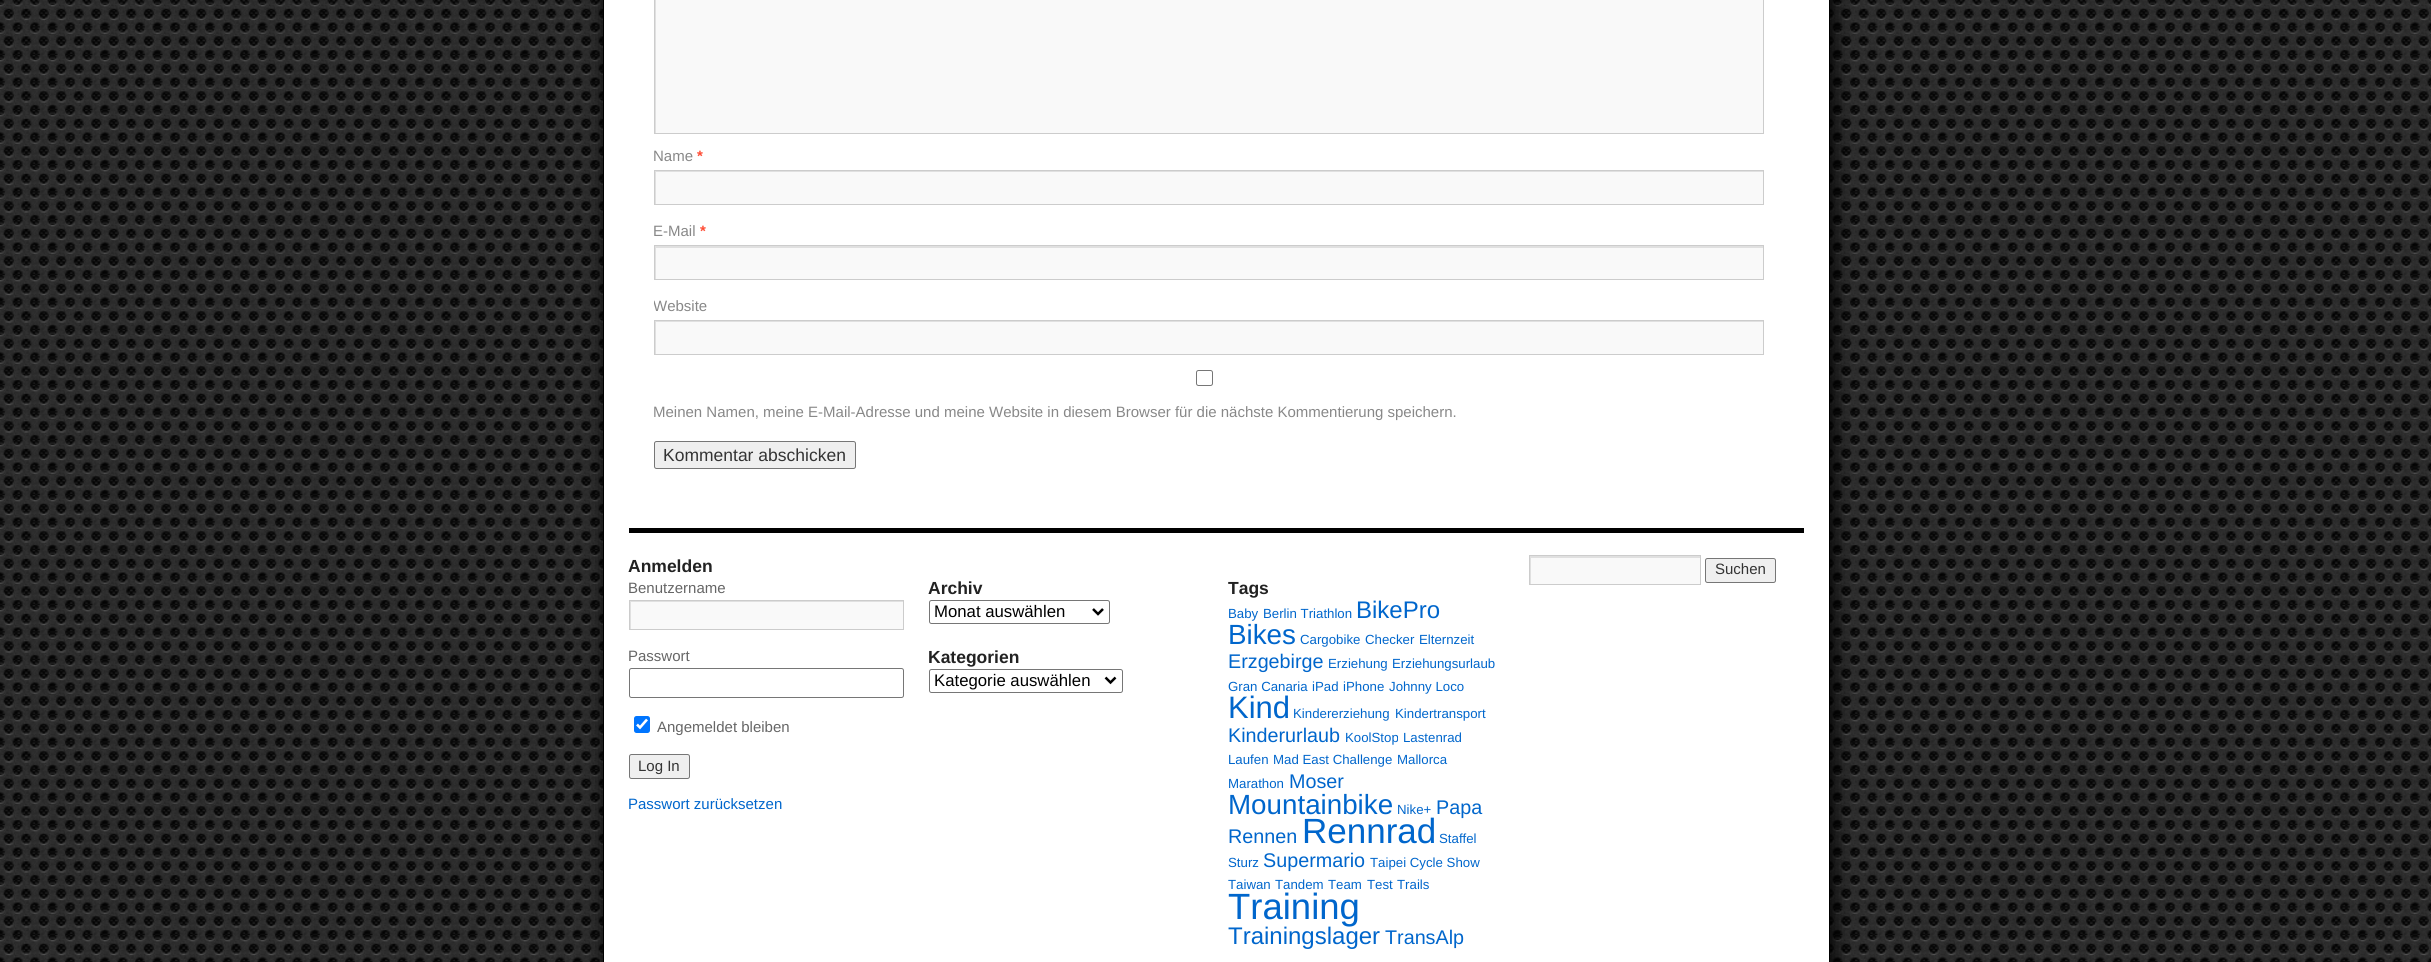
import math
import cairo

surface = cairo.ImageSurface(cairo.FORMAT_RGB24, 2431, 962)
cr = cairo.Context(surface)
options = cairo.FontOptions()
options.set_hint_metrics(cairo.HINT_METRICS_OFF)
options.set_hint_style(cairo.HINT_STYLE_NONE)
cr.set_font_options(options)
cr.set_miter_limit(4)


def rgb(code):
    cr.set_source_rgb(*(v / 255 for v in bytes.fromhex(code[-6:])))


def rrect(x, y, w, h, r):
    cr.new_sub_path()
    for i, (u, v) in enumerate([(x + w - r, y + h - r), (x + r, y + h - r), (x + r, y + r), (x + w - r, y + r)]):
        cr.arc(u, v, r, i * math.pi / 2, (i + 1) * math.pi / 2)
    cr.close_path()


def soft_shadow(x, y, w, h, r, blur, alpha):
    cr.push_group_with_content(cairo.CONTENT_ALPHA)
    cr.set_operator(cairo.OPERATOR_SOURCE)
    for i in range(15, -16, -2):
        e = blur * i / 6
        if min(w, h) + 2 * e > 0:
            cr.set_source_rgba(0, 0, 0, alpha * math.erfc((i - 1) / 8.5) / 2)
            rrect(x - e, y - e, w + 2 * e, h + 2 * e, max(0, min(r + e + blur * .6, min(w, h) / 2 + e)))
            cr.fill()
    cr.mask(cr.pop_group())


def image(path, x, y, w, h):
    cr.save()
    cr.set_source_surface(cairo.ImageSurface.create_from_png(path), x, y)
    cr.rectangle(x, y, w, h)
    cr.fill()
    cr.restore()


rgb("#ffffff")
cr.paint()
image("img/1.png", 0, 0, 2431, 962)
rgb("#000000")
soft_shadow(606, -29, 1228, 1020, 0, 9.5, 1)
rgb("#ffffff")
cr.rectangle(603.5, -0.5, 1226, 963)
cr.fill_preserve()
rgb("#000000")
cr.set_line_width(1)
cr.stroke()
rgb("#f9f9f9")
cr.rectangle(656, 0, 1107, 133)
cr.fill()
cr.save()
cr.rectangle(655, 0, 1108, 133)
cr.clip()
rgb("#e0e0e0")
cr.set_fill_rule(cairo.FILL_RULE_EVEN_ODD)
cr.new_path()
cr.move_to(531, -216)
cr.line_to(1886, -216)
cr.line_to(1886, 256)
cr.line_to(531, 256)
cr.close_path()
cr.move_to(656, -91)
cr.line_to(1764, -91)
cr.line_to(1764, 134)
cr.line_to(656, 134)
cr.close_path()
cr.fill()
cr.restore()
cr.rectangle(654.5, -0.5, 1109, 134)
rgb("#cccccc")
cr.stroke()
rgb("#f9f9f9")
cr.rectangle(656, 172, 1107, 32)
cr.fill()
cr.save()
cr.rectangle(655, 171, 1108, 33)
cr.clip()
rgb("#e0e0e0")
cr.set_fill_rule(cairo.FILL_RULE_EVEN_ODD)
cr.new_path()
cr.move_to(531, 48)
cr.line_to(1886, 48)
cr.line_to(1886, 328)
cr.line_to(531, 328)
cr.close_path()
cr.move_to(656, 172)
cr.line_to(1764, 172)
cr.line_to(1764, 205)
cr.line_to(656, 205)
cr.close_path()
cr.fill()
cr.restore()
cr.rectangle(654.5, 170.5, 1109, 34)
rgb("#cccccc")
cr.stroke()
rgb("#f9f9f9")
cr.rectangle(656, 248, 1107, 31)
cr.fill()
cr.save()
cr.rectangle(655, 246, 1108, 33)
cr.clip()
rgb("#e0e0e0")
cr.set_fill_rule(cairo.FILL_RULE_EVEN_ODD)
cr.new_path()
cr.move_to(531, 122)
cr.line_to(1886, 122)
cr.line_to(1886, 402)
cr.line_to(531, 402)
cr.close_path()
cr.move_to(656, 248)
cr.line_to(1764, 248)
cr.line_to(1764, 280)
cr.line_to(656, 280)
cr.close_path()
cr.fill()
cr.restore()
cr.rectangle(654.5, 245.5, 1109, 34)
rgb("#cccccc")
cr.stroke()
rgb("#f9f9f9")
cr.rectangle(656, 322, 1107, 32)
cr.fill()
cr.save()
cr.rectangle(655, 321, 1108, 33)
cr.clip()
rgb("#e0e0e0")
cr.set_fill_rule(cairo.FILL_RULE_EVEN_ODD)
cr.new_path()
cr.move_to(531, 198)
cr.line_to(1886, 198)
cr.line_to(1886, 478)
cr.line_to(531, 478)
cr.close_path()
cr.move_to(656, 322)
cr.line_to(1764, 322)
cr.line_to(1764, 355)
cr.line_to(656, 355)
cr.close_path()
cr.fill()
cr.restore()
cr.rectangle(654.5, 320.5, 1109, 34)
rgb("#cccccc")
cr.stroke()
rrect(1196.5, 370.5, 16, 15, 2)
rgb("#767676")
cr.stroke()
rgb("#efefef")
rrect(654.5, 441.5, 201, 27, 2)
cr.fill_preserve()
rgb("#767676")
cr.stroke()
rgb("#000000")
cr.rectangle(629, 528, 1175, 5)
cr.fill()
rgb("#f9f9f9")
cr.rectangle(631, 602, 272, 27)
cr.fill()
cr.save()
cr.rectangle(630, 601, 273, 28)
cr.clip()
rgb("#e0e0e0")
cr.set_fill_rule(cairo.FILL_RULE_EVEN_ODD)
cr.new_path()
cr.move_to(506, 478)
cr.line_to(1026, 478)
cr.line_to(1026, 752)
cr.line_to(506, 752)
cr.close_path()
cr.move_to(631, 602)
cr.line_to(904, 602)
cr.line_to(904, 630)
cr.line_to(631, 630)
cr.close_path()
cr.fill()
cr.restore()
cr.rectangle(629.5, 600.5, 274, 29)
rgb("#cccccc")
cr.stroke()
rrect(629.5, 668.5, 274, 29, 2)
rgb("#767676")
cr.stroke()
rgb("#0075ff")
rrect(634, 716, 16, 17, 2.5)
cr.fill()
cr.new_path()
cr.move_to(637, 724.5)
cr.line_to(640, 727.5)
cr.line_to(647, 719.5)
rgb("#ffffff")
cr.set_line_width(2.6)
cr.stroke()
rgb("#efefef")
rrect(629.5, 754.5, 60, 24, 2)
cr.fill_preserve()
rgb("#767676")
cr.set_line_width(1)
cr.stroke()
rgb("#f9f9f9")
cr.rectangle(1531, 558, 169, 26)
cr.fill()
cr.save()
cr.rectangle(1530, 556, 170, 28)
cr.clip()
rgb("#e0e0e0")
cr.set_fill_rule(cairo.FILL_RULE_EVEN_ODD)
cr.new_path()
cr.move_to(1406, 432)
cr.line_to(1824, 432)
cr.line_to(1824, 708)
cr.line_to(1406, 708)
cr.close_path()
cr.move_to(1531, 558)
cr.line_to(1701, 558)
cr.line_to(1701, 585)
cr.line_to(1531, 585)
cr.close_path()
cr.fill()
cr.restore()
cr.rectangle(1529.5, 555.5, 171, 29)
rgb("#cccccc")
cr.stroke()
rgb("#efefef")
rrect(1705.5, 558.5, 70, 24, 2)
cr.fill_preserve()
rgb("#767676")
cr.stroke()
rrect(929.5, 600.5, 180, 23, 2)
cr.stroke()
cr.new_path()
cr.move_to(1093, 609)
cr.line_to(1098, 614)
cr.line_to(1103, 609)
rgb("#000000")
cr.set_line_width(2.5)
cr.stroke()
rrect(929.5, 669.5, 193, 23, 2)
rgb("#767676")
cr.set_line_width(1)
cr.stroke()
cr.new_path()
cr.move_to(1105.5, 677.5)
cr.line_to(1110.5, 682.5)
cr.line_to(1115.5, 677.5)
rgb("#000000")
cr.set_line_width(2.5)
cr.stroke()
cr.select_font_face("Liberation Sans")
cr.set_font_size(15)
rgb("#888888")
cr.move_to(653, 161)
cr.show_text("Name")
cr.select_font_face("Liberation Sans", cairo.FONT_SLANT_NORMAL, cairo.FONT_WEIGHT_BOLD)
rgb("#ff4b33")
cr.move_to(697, 161)
cr.show_text("*")
cr.select_font_face("Liberation Sans")
rgb("#888888")
cr.move_to(653, 236)
cr.show_text("E-Mail")
cr.select_font_face("Liberation Sans", cairo.FONT_SLANT_NORMAL, cairo.FONT_WEIGHT_BOLD)
rgb("#ff4b33")
cr.move_to(700, 236)
cr.show_text("*")
cr.save()
cr.rectangle(654, 0, 1125, 495)
cr.clip()
cr.select_font_face("Liberation Sans")
rgb("#888888")
cr.move_to(653, 311)
cr.show_text("Website")
cr.restore()
cr.select_font_face("Liberation Sans")
rgb("#888888")
cr.move_to(653, 417)
cr.show_text("Meinen Namen, meine E-Mail-Adresse und meine Website in diesem Browser für die nächste Kommentierung speichern.")
cr.set_font_size(17.5)
rgb("#333333")
cr.move_to(663, 461)
cr.show_text("Kommentar abschicken")
cr.select_font_face("Liberation Sans", cairo.FONT_SLANT_NORMAL, cairo.FONT_WEIGHT_BOLD)
rgb("#222222")
cr.move_to(628, 572)
cr.show_text("Anmelden")
cr.select_font_face("Liberation Sans")
cr.set_font_size(15)
rgb("#666666")
for x, y, s in [
    (628, 593, "Benutzername"),
    (628, 661, "Passwort"),
    (657, 732, "Angemeldet bleiben"),
]:
    cr.move_to(x, y)
    cr.show_text(s)
rgb("#333333")
cr.move_to(638, 771)
cr.show_text("Log In")
rgb("#0066cc")
cr.move_to(628, 809)
cr.show_text("Passwort zurücksetzen")
rgb("#333333")
cr.move_to(1715, 574)
cr.show_text("Suchen")
cr.select_font_face("Liberation Sans", cairo.FONT_SLANT_NORMAL, cairo.FONT_WEIGHT_BOLD)
cr.set_font_size(17.5)
rgb("#222222")
cr.move_to(928, 594)
cr.show_text("Archiv")
cr.select_font_face("Liberation Sans")
cr.set_font_size(16.75)
rgb("#000000")
cr.move_to(934, 617)
cr.show_text("Monat auswählen")
cr.select_font_face("Liberation Sans", cairo.FONT_SLANT_NORMAL, cairo.FONT_WEIGHT_BOLD)
cr.set_font_size(17.5)
rgb("#222222")
cr.move_to(928, 663)
cr.show_text("Kategorien")
cr.select_font_face("Liberation Sans")
cr.set_font_size(16.75)
rgb("#000000")
cr.move_to(934, 686)
cr.show_text("Kategorie auswählen")
cr.select_font_face("Liberation Sans", cairo.FONT_SLANT_NORMAL, cairo.FONT_WEIGHT_BOLD)
cr.set_font_size(17.5)
rgb("#222222")
cr.move_to(1228, 594)
cr.show_text("Tags")
cr.select_font_face("Liberation Sans")
cr.set_font_size(13.25)
rgb("#0066cc")
cr.move_to(1228, 618)
cr.show_text("Baby")
cr.move_to(1263, 618)
cr.show_text("Berlin Triathlon")
cr.set_font_size(24)
cr.move_to(1356, 618)
cr.show_text("BikePro")
cr.set_font_size(27.75)
cr.move_to(1228, 644)
cr.show_text("Bikes")
cr.set_font_size(13.25)
for x, y, s in [
    (1300, 644, "Cargobike"),
    (1365, 644, "Checker"),
    (1419, 644, "Elternzeit"),
]:
    cr.move_to(x, y)
    cr.show_text(s)
cr.set_font_size(19.75)
cr.move_to(1228, 668)
cr.show_text("Erzgebirge")
cr.set_font_size(13.25)
for x, y, s in [
    (1328, 668, "Erziehung"),
    (1392, 668, "Erziehungsurlaub"),
    (1228, 691, "Gran Canaria"),
    (1312, 691, "iPad"),
    (1343, 691, "iPhone"),
    (1389, 691, "Johnny Loco"),
]:
    cr.move_to(x, y)
    cr.show_text(s)
cr.set_font_size(31)
cr.move_to(1228, 718)
cr.show_text("Kind")
cr.set_font_size(13.25)
cr.move_to(1293, 718)
cr.show_text("Kindererziehung")
cr.move_to(1395, 718)
cr.show_text("Kindertransport")
cr.set_font_size(19.75)
cr.move_to(1228, 742)
cr.show_text("Kinderurlaub")
cr.set_font_size(13.25)
for x, y, s in [
    (1345, 742, "KoolStop"),
    (1403, 742, "Lastenrad"),
    (1228, 764, "Laufen"),
    (1273, 764, "Mad East Challenge"),
    (1397, 764, "Mallorca"),
    (1228, 788, "Marathon"),
]:
    cr.move_to(x, y)
    cr.show_text(s)
cr.set_font_size(19.75)
cr.move_to(1289, 788)
cr.show_text("Moser")
cr.set_font_size(27.75)
cr.move_to(1228, 814)
cr.show_text("Mountainbike")
cr.set_font_size(13.25)
cr.move_to(1397, 814)
cr.show_text("Nike+")
cr.set_font_size(19.75)
cr.move_to(1436, 814)
cr.show_text("Papa")
cr.move_to(1228, 843)
cr.show_text("Rennen")
cr.set_font_size(35)
cr.move_to(1302, 843)
cr.show_text("Rennrad")
cr.set_font_size(13.25)
cr.move_to(1439, 843)
cr.show_text("Staffel")
cr.move_to(1228, 867)
cr.show_text("Sturz")
cr.set_font_size(19.75)
cr.move_to(1263, 867)
cr.show_text("Supermario")
cr.set_font_size(13.25)
for x, y, s in [
    (1370, 867, "Taipei Cycle Show"),
    (1228, 889, "Taiwan"),
    (1275, 889, "Tandem"),
    (1328, 889, "Team"),
    (1367, 889, "Test"),
    (1397, 889, "Trails"),
]:
    cr.move_to(x, y)
    cr.show_text(s)
cr.set_font_size(36.5)
cr.move_to(1228, 919)
cr.show_text("Training")
cr.set_font_size(24)
cr.move_to(1228, 944)
cr.show_text("Trainingslager")
cr.set_font_size(19.75)
cr.move_to(1385, 944)
cr.show_text("TransAlp")
surface.write_to_png("page.png")
